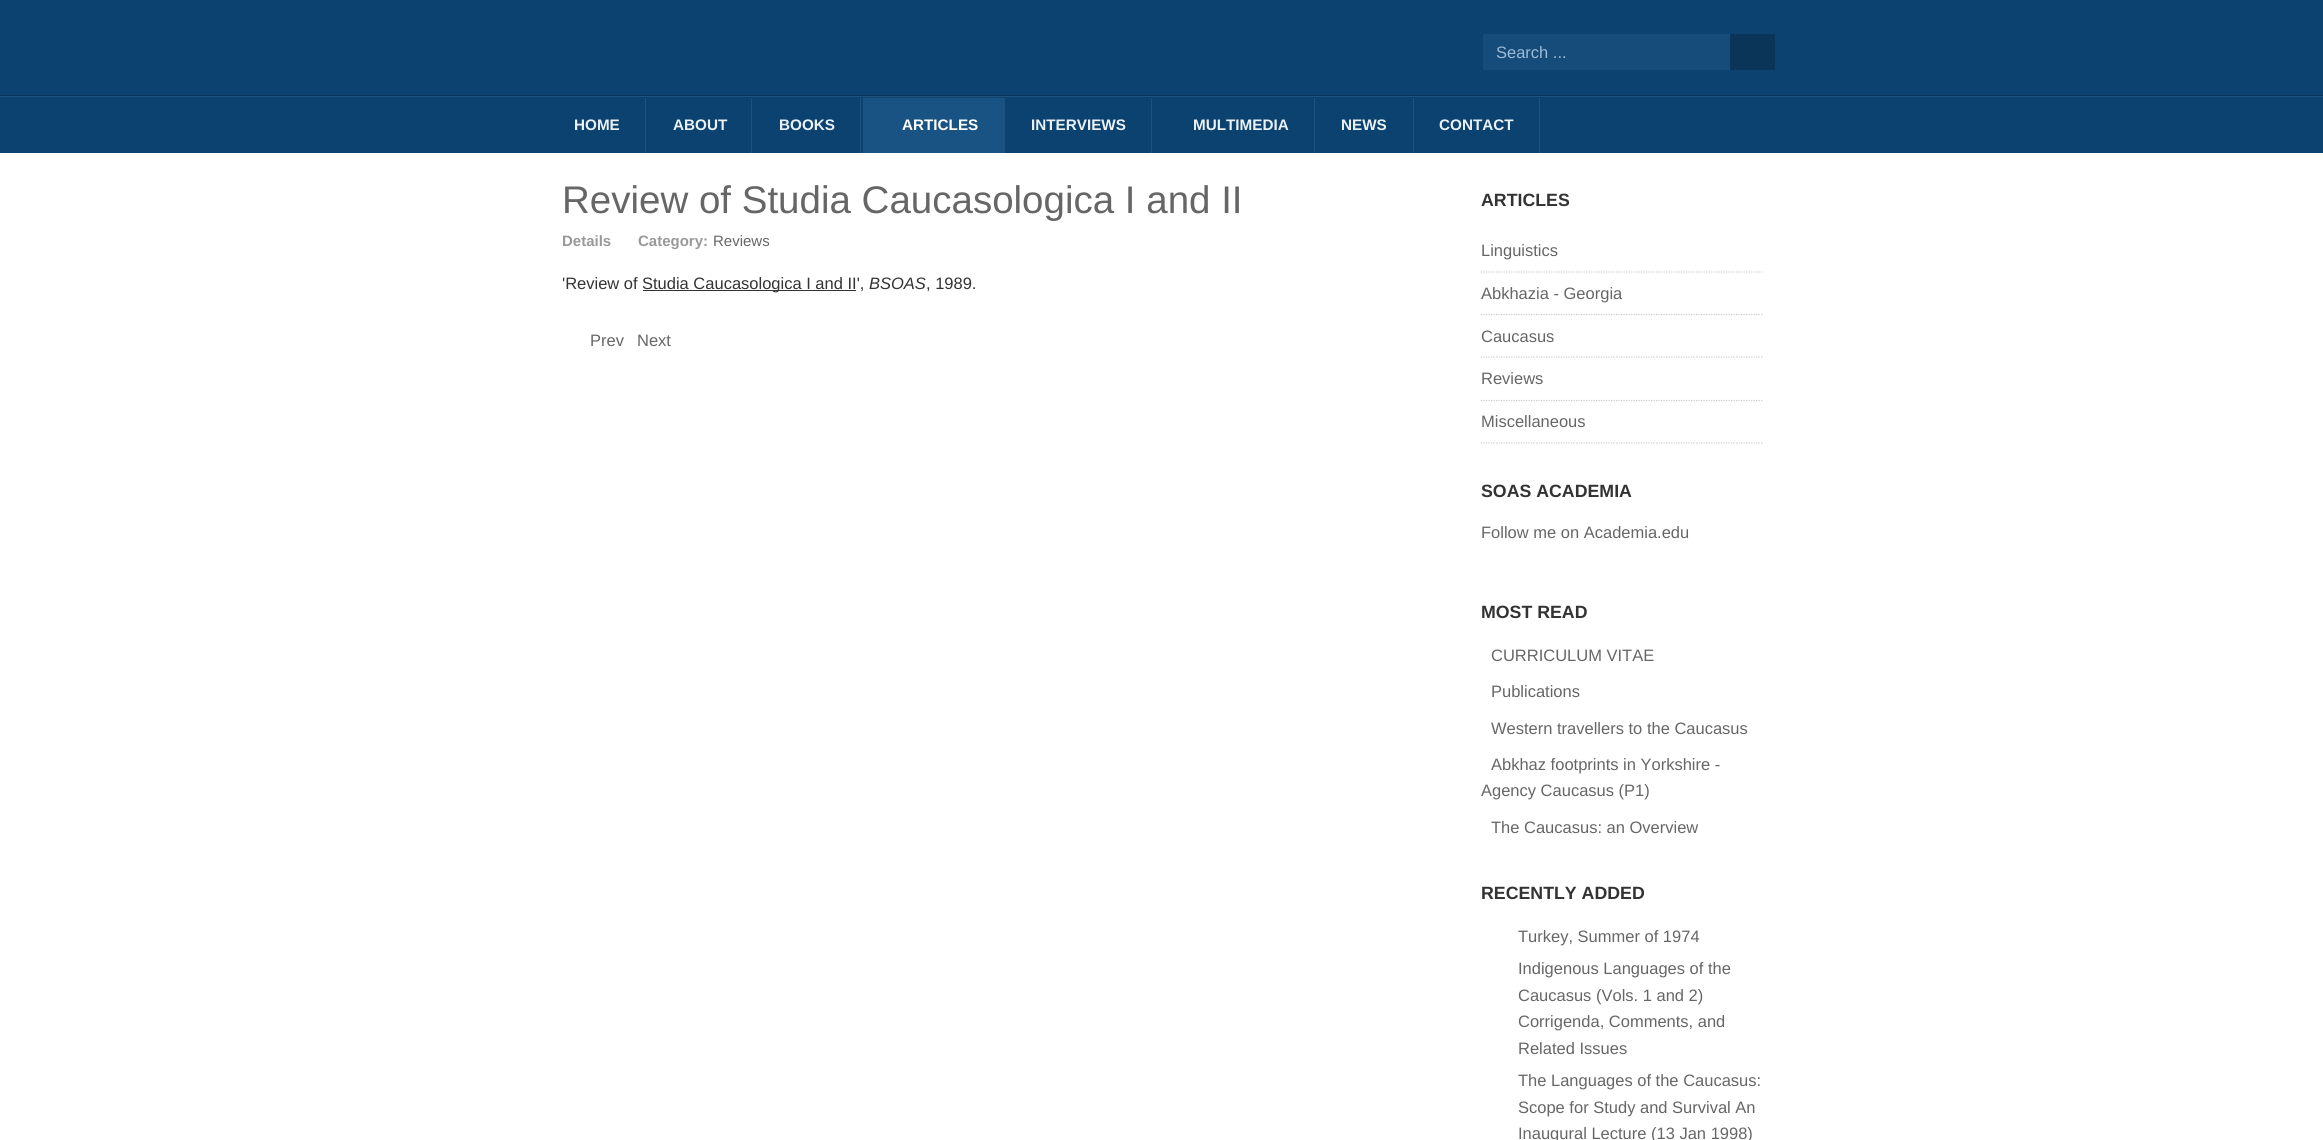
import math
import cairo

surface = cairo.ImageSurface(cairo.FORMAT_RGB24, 2323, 1140)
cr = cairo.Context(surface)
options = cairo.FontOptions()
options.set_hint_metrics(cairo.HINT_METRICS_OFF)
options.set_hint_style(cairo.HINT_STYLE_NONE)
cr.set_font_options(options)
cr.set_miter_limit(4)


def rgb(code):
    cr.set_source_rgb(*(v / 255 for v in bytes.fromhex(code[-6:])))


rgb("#ffffff")
cr.paint()
for x, y, w, h, color in [
    (0, 0, 2323, 95, "#0c426f"),
    (0, 95, 2323, 1, "#09355a"),
    (1483, 34, 247, 36, "#154c7a"),
    (1730, 34, 45, 36, "#0a3559"),
    (0, 97, 2323, 56, "#0c426f"),
    (0, 96, 2323, 1, "#1f537e"),
    (645, 98, 1, 55, "#1b5280"),
    (751, 98, 1, 55, "#1b5280"),
    (860, 98, 1, 55, "#1b5280"),
    (863, 98, 141, 55, "#195383"),
    (1004, 98, 1, 55, "#1b5280"),
    (1151, 98, 1, 55, "#1b5280"),
    (1314, 98, 1, 55, "#1b5280"),
    (1413, 98, 1, 55, "#1b5280"),
    (1539, 98, 1, 55, "#1b5280"),
    (643, 290, 213, 1, "#333333"),
]:
    rgb(color)
    cr.rectangle(x, y, w, h)
    cr.fill()
cr.new_path()
cr.move_to(1481, 272)
cr.line_to(1762.5, 272)
rgb("#cccccc")
cr.set_line_width(1.2)
cr.set_dash([1.25, 1.25])
cr.stroke()
cr.new_path()
cr.move_to(1481, 314.5)
cr.line_to(1762.5, 314.5)
cr.stroke()
cr.new_path()
cr.move_to(1481, 357)
cr.line_to(1762.5, 357)
cr.stroke()
cr.new_path()
cr.move_to(1481, 400.5)
cr.line_to(1762.5, 400.5)
cr.stroke()
cr.new_path()
cr.move_to(1481, 443)
cr.line_to(1762.5, 443)
cr.stroke()
cr.select_font_face("Liberation Sans")
cr.set_font_size(16.5)
rgb("#9dbbd5")
cr.move_to(1496, 58)
cr.show_text("Search ...")
cr.select_font_face("Liberation Sans", cairo.FONT_SLANT_NORMAL, cairo.FONT_WEIGHT_BOLD)
cr.set_font_size(15.25)
rgb("#eaf1f7")
for x, y, s in [
    (574, 130, "HOME"),
    (673, 130, "ABOUT"),
    (779, 130, "BOOKS"),
]:
    cr.move_to(x, y)
    cr.show_text(s)
rgb("#ffffff")
cr.move_to(902, 130)
cr.show_text("ARTICLES")
rgb("#eaf1f7")
for x, y, s in [
    (1031, 130, "INTERVIEWS"),
    (1193, 130, "MULTIMEDIA"),
    (1341, 130, "NEWS"),
    (1439, 130, "CONTACT"),
]:
    cr.move_to(x, y)
    cr.show_text(s)
cr.select_font_face("Liberation Sans")
cr.set_font_size(38.5)
rgb("#666666")
cr.move_to(562, 213)
cr.show_text("Review of Studia Caucasologica I and II")
cr.save()
cr.rectangle(563, 178, 893, 213)
cr.clip()
cr.select_font_face("Liberation Sans", cairo.FONT_SLANT_NORMAL, cairo.FONT_WEIGHT_BOLD)
cr.set_font_size(15)
rgb("#999999")
cr.move_to(562, 246)
cr.show_text("Details")
cr.restore()
cr.select_font_face("Liberation Sans", cairo.FONT_SLANT_NORMAL, cairo.FONT_WEIGHT_BOLD)
cr.set_font_size(15)
rgb("#999999")
cr.move_to(638, 246)
cr.show_text("Category:")
cr.select_font_face("Liberation Sans")
rgb("#666666")
cr.move_to(713, 246)
cr.show_text("Reviews")
cr.save()
cr.rectangle(563, 178, 893, 213)
cr.clip()
cr.set_font_size(16.5)
rgb("#333333")
cr.move_to(562, 289)
cr.show_text("'Review of")
cr.restore()
cr.set_font_size(16.5)
rgb("#333333")
cr.move_to(642, 289)
cr.show_text("Studia Caucasologica I and II',")
cr.select_font_face("Liberation Sans", cairo.FONT_SLANT_ITALIC)
cr.move_to(869, 289)
cr.show_text("BSOAS")
cr.select_font_face("Liberation Sans")
cr.move_to(926, 289)
cr.show_text(", 1989.")
rgb("#666666")
cr.move_to(590, 346)
cr.show_text("Prev")
cr.move_to(637, 346)
cr.show_text("Next")
cr.select_font_face("Liberation Sans", cairo.FONT_SLANT_NORMAL, cairo.FONT_WEIGHT_BOLD)
cr.set_font_size(17.75)
rgb("#333333")
cr.move_to(1481, 206)
cr.show_text("ARTICLES")
cr.select_font_face("Liberation Sans")
cr.set_font_size(16.5)
rgb("#666666")
for x, y, s in [
    (1481, 256, "Linguistics"),
    (1481, 299, "Abkhazia - Georgia"),
    (1481, 342, "Caucasus"),
    (1481, 384, "Reviews"),
    (1481, 427, "Miscellaneous"),
]:
    cr.move_to(x, y)
    cr.show_text(s)
cr.select_font_face("Liberation Sans", cairo.FONT_SLANT_NORMAL, cairo.FONT_WEIGHT_BOLD)
cr.set_font_size(17.75)
rgb("#333333")
cr.move_to(1481, 497)
cr.show_text("SOAS ACADEMIA")
cr.select_font_face("Liberation Sans")
cr.set_font_size(16.5)
rgb("#666666")
cr.move_to(1481, 538)
cr.show_text("Follow me on Academia.edu")
cr.select_font_face("Liberation Sans", cairo.FONT_SLANT_NORMAL, cairo.FONT_WEIGHT_BOLD)
cr.set_font_size(17.75)
rgb("#333333")
cr.move_to(1481, 618)
cr.show_text("MOST READ")
cr.select_font_face("Liberation Sans")
cr.set_font_size(16.5)
rgb("#666666")
for x, y, s in [
    (1491, 661, "CURRICULUM VITAE"),
    (1491, 697, "Publications"),
    (1491, 734, "Western travellers to the Caucasus"),
    (1491, 770, "Abkhaz footprints in Yorkshire -"),
    (1481, 796, "Agency Caucasus (P1)"),
    (1491, 833, "The Caucasus: an Overview"),
]:
    cr.move_to(x, y)
    cr.show_text(s)
cr.select_font_face("Liberation Sans", cairo.FONT_SLANT_NORMAL, cairo.FONT_WEIGHT_BOLD)
cr.set_font_size(17.75)
rgb("#333333")
cr.move_to(1481, 899)
cr.show_text("RECENTLY ADDED")
cr.select_font_face("Liberation Sans")
cr.set_font_size(16.5)
rgb("#666666")
for x, y, s in [
    (1518, 942, "Turkey, Summer of 1974"),
    (1518, 974, "Indigenous Languages of the"),
    (1518, 1001, "Caucasus (Vols. 1 and 2)"),
    (1518, 1027, "Corrigenda, Comments, and"),
    (1518, 1054, "Related Issues"),
    (1518, 1086, "The Languages of the Caucasus:"),
    (1518, 1113, "Scope for Study and Survival An"),
    (1518, 1139, "Inaugural Lecture (13 Jan 1998)"),
]:
    cr.move_to(x, y)
    cr.show_text(s)
surface.write_to_png("page.png")
